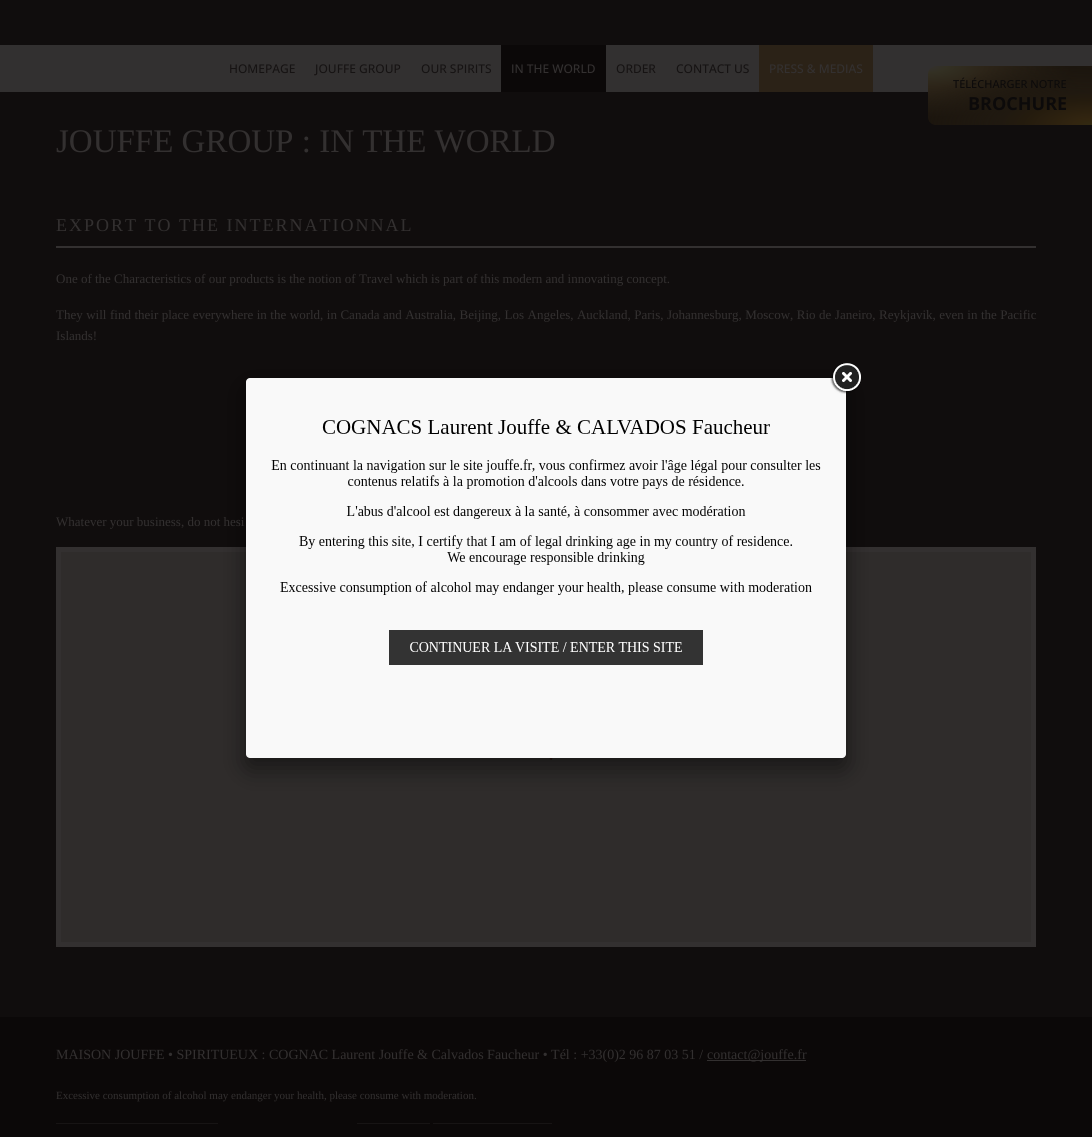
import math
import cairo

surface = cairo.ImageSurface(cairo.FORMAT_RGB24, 1092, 1137)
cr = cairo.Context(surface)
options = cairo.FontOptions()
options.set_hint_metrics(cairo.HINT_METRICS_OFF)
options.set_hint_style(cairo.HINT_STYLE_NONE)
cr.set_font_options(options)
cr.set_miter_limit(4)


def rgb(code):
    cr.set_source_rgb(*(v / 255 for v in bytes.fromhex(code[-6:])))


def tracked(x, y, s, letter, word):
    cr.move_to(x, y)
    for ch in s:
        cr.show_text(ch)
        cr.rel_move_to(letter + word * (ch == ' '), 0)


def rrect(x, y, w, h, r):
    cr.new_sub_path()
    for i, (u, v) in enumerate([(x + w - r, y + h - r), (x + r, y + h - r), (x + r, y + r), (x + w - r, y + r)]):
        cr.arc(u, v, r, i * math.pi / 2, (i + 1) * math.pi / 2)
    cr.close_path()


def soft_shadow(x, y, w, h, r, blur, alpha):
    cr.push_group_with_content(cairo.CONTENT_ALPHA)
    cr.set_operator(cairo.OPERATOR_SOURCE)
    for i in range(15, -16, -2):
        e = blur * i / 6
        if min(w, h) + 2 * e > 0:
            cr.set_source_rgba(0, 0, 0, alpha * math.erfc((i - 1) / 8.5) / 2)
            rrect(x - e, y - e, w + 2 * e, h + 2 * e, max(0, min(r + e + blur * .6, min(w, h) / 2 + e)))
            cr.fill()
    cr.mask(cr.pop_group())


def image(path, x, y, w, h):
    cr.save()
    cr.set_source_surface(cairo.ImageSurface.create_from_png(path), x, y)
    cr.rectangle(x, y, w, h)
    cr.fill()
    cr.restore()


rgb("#100d0d")
cr.paint()
for x, y, w, h, color in [
    (0, 45, 1092, 47, "#323030"),
    (501, 45, 105, 47, "#0b0808"),
    (759, 45, 114, 47, "#2b2217"),
]:
    rgb(color)
    cr.rectangle(x, y, w, h)
    cr.fill()
gradient = cairo.RadialGradient(0, 0, 0, 0, 0, 1)
gradient.set_matrix(cairo.Matrix(1 / 232, 0, 0, 1 / 83, -1 * 928 / 232, -1 * 66 / 83))
gradient.add_color_stop_rgba(0, 0.2, 0.188, 0.188, 1)
gradient.add_color_stop_rgba(0.08, 0.2, 0.188, 0.137, 1)
gradient.add_color_stop_rgba(0.25, 0.173, 0.141, 0.094, 1)
gradient.add_color_stop_rgba(0.62, 0.102, 0.078, 0.051, 1)
gradient.add_color_stop_rgba(1, 0.102, 0.078, 0.051, 1)
cr.set_source(gradient)
cr.new_path()
cr.move_to(936, 66)
cr.line_to(1092, 66)
cr.line_to(1092, 125)
cr.line_to(936, 125)
cr.curve_to(931.5, 125, 928, 121.5, 928, 117)
cr.line_to(928, 74)
cr.curve_to(928, 69.5, 931.5, 66, 936, 66)
cr.close_path()
cr.fill()
gradient = cairo.RadialGradient(0, 0, 0, 0, 0, 1)
gradient.set_matrix(cairo.Matrix(1 / 232, 0, 0, 1 / 83, -1 * 1092 / 232, -1 * 125 / 83))
gradient.add_color_stop_rgba(0, 0.196, 0.165, 0.067, 1)
gradient.add_color_stop_rgba(0.08, 0.196, 0.145, 0.063, 1)
gradient.add_color_stop_rgba(0.3, 0.141, 0.106, 0.055, 1)
gradient.add_color_stop_rgba(0.4, 0.125, 0.098, 0.063, 1)
gradient.add_color_stop_rgba(0.8, 0.125, 0.098, 0.063, 0)
cr.set_source(gradient)
cr.new_path()
cr.move_to(936, 66)
cr.line_to(1092, 66)
cr.line_to(1092, 125)
cr.line_to(936, 125)
cr.curve_to(931.5, 125, 928, 121.5, 928, 117)
cr.line_to(928, 74)
cr.curve_to(928, 69.5, 931.5, 66, 936, 66)
cr.close_path()
cr.fill()
rgb("#333030")
cr.rectangle(56, 246, 980, 2)
cr.fill()
cr.rectangle(58.5, 549.5, 975, 395)
cr.set_line_width(5)
cr.stroke()
rgb("#2f2c2b")
cr.rectangle(61, 552, 970, 390)
cr.fill()
image("img/1.png", 549, 758, 3, 2)
image("img/2.png", 552, 758, 1, 2)
image("img/3.png", 550, 758, 2, 1)
rgb("#000000")
soft_shadow(246, 388, 600, 380, 4, 12.5, 0.5)
rgb("#f9f9f9")
rrect(246, 378, 600, 380, 4)
cr.fill()
image("img/4.png", 830, 363, 31, 31)
image("img/5.png", 271, 419, 550, 246)
for x, y, w, h, color in [
    (0, 1017, 1092, 120, "#0b0808"),
    (707, 1060, 99, 1, "#333030"),
    (56, 1123, 162, 1, "#171414"),
    (357, 1123, 73, 1, "#171414"),
    (433, 1123, 119, 1, "#171414"),
]:
    rgb(color)
    cr.rectangle(x, y, w, h)
    cr.fill()
cr.select_font_face("Open Sans Medium")
cr.set_font_size(12)
rgb("#161313")
for x, y, s in [
    (229, 73, "HOMEPAGE"),
    (315, 73, "JOUFFE GROUP"),
    (421, 73, "OUR SPIRITS"),
]:
    cr.move_to(x, y)
    cr.show_text(s)
rgb("#333030")
cr.move_to(511, 73)
cr.show_text("IN THE WORLD")
rgb("#161313")
cr.move_to(616, 73)
cr.show_text("ORDER")
cr.move_to(676, 73)
cr.show_text("CONTACT US")
rgb("#333030")
cr.move_to(769, 73)
cr.show_text("PRESS & MEDIAS")
cr.set_font_size(11)
rgb("#0c0a0a")
cr.move_to(953, 88)
cr.show_text("TÉLÉCHARGER NOTRE")
cr.select_font_face("Open Sans", cairo.FONT_SLANT_NORMAL, cairo.FONT_WEIGHT_BOLD)
cr.set_font_size(18)
cr.move_to(968, 110)
cr.show_text("BROCHURE")
cr.select_font_face("Liberation Serif")
cr.set_font_size(33)
rgb("#333030")
cr.move_to(56, 152)
cr.show_text("JOUFFE GROUP : IN THE WORLD")
cr.set_font_size(18)
tracked(56, 231, "EXPORT TO THE INTERNATIONNAL", 2, 0)
cr.set_font_size(13)
cr.move_to(56, 283)
cr.show_text("One of the Characteristics of our products is the notion of Travel which is part of this modern and innovating concept.")
tracked(56, 319, "They will find their place everywhere in the world, in Canada and Australia, Beijing, Los Angeles, Auckland, Paris, Johannesburg, Moscow, Rio de Janeiro, Reykjavik, even in the Pacific", 0, 0.25)
cr.move_to(56, 340)
cr.show_text("Islands!")
cr.move_to(56, 526)
cr.show_text("Whatever your business, do not hesi")
cr.set_font_size(14)
cr.move_to(56, 1059)
cr.show_text("MAISON JOUFFE • SPIRITUEUX : COGNAC Laurent Jouffe & Calvados Faucheur • Tél : +33(0)2 96 87 03 51 /")
cr.move_to(707, 1059)
cr.show_text("contact@jouffe.fr")
cr.set_font_size(11)
cr.move_to(56, 1099)
cr.show_text("Excessive consumption of alcohol may endanger your health, please consume with moderation.")
surface.write_to_png("page.png")
